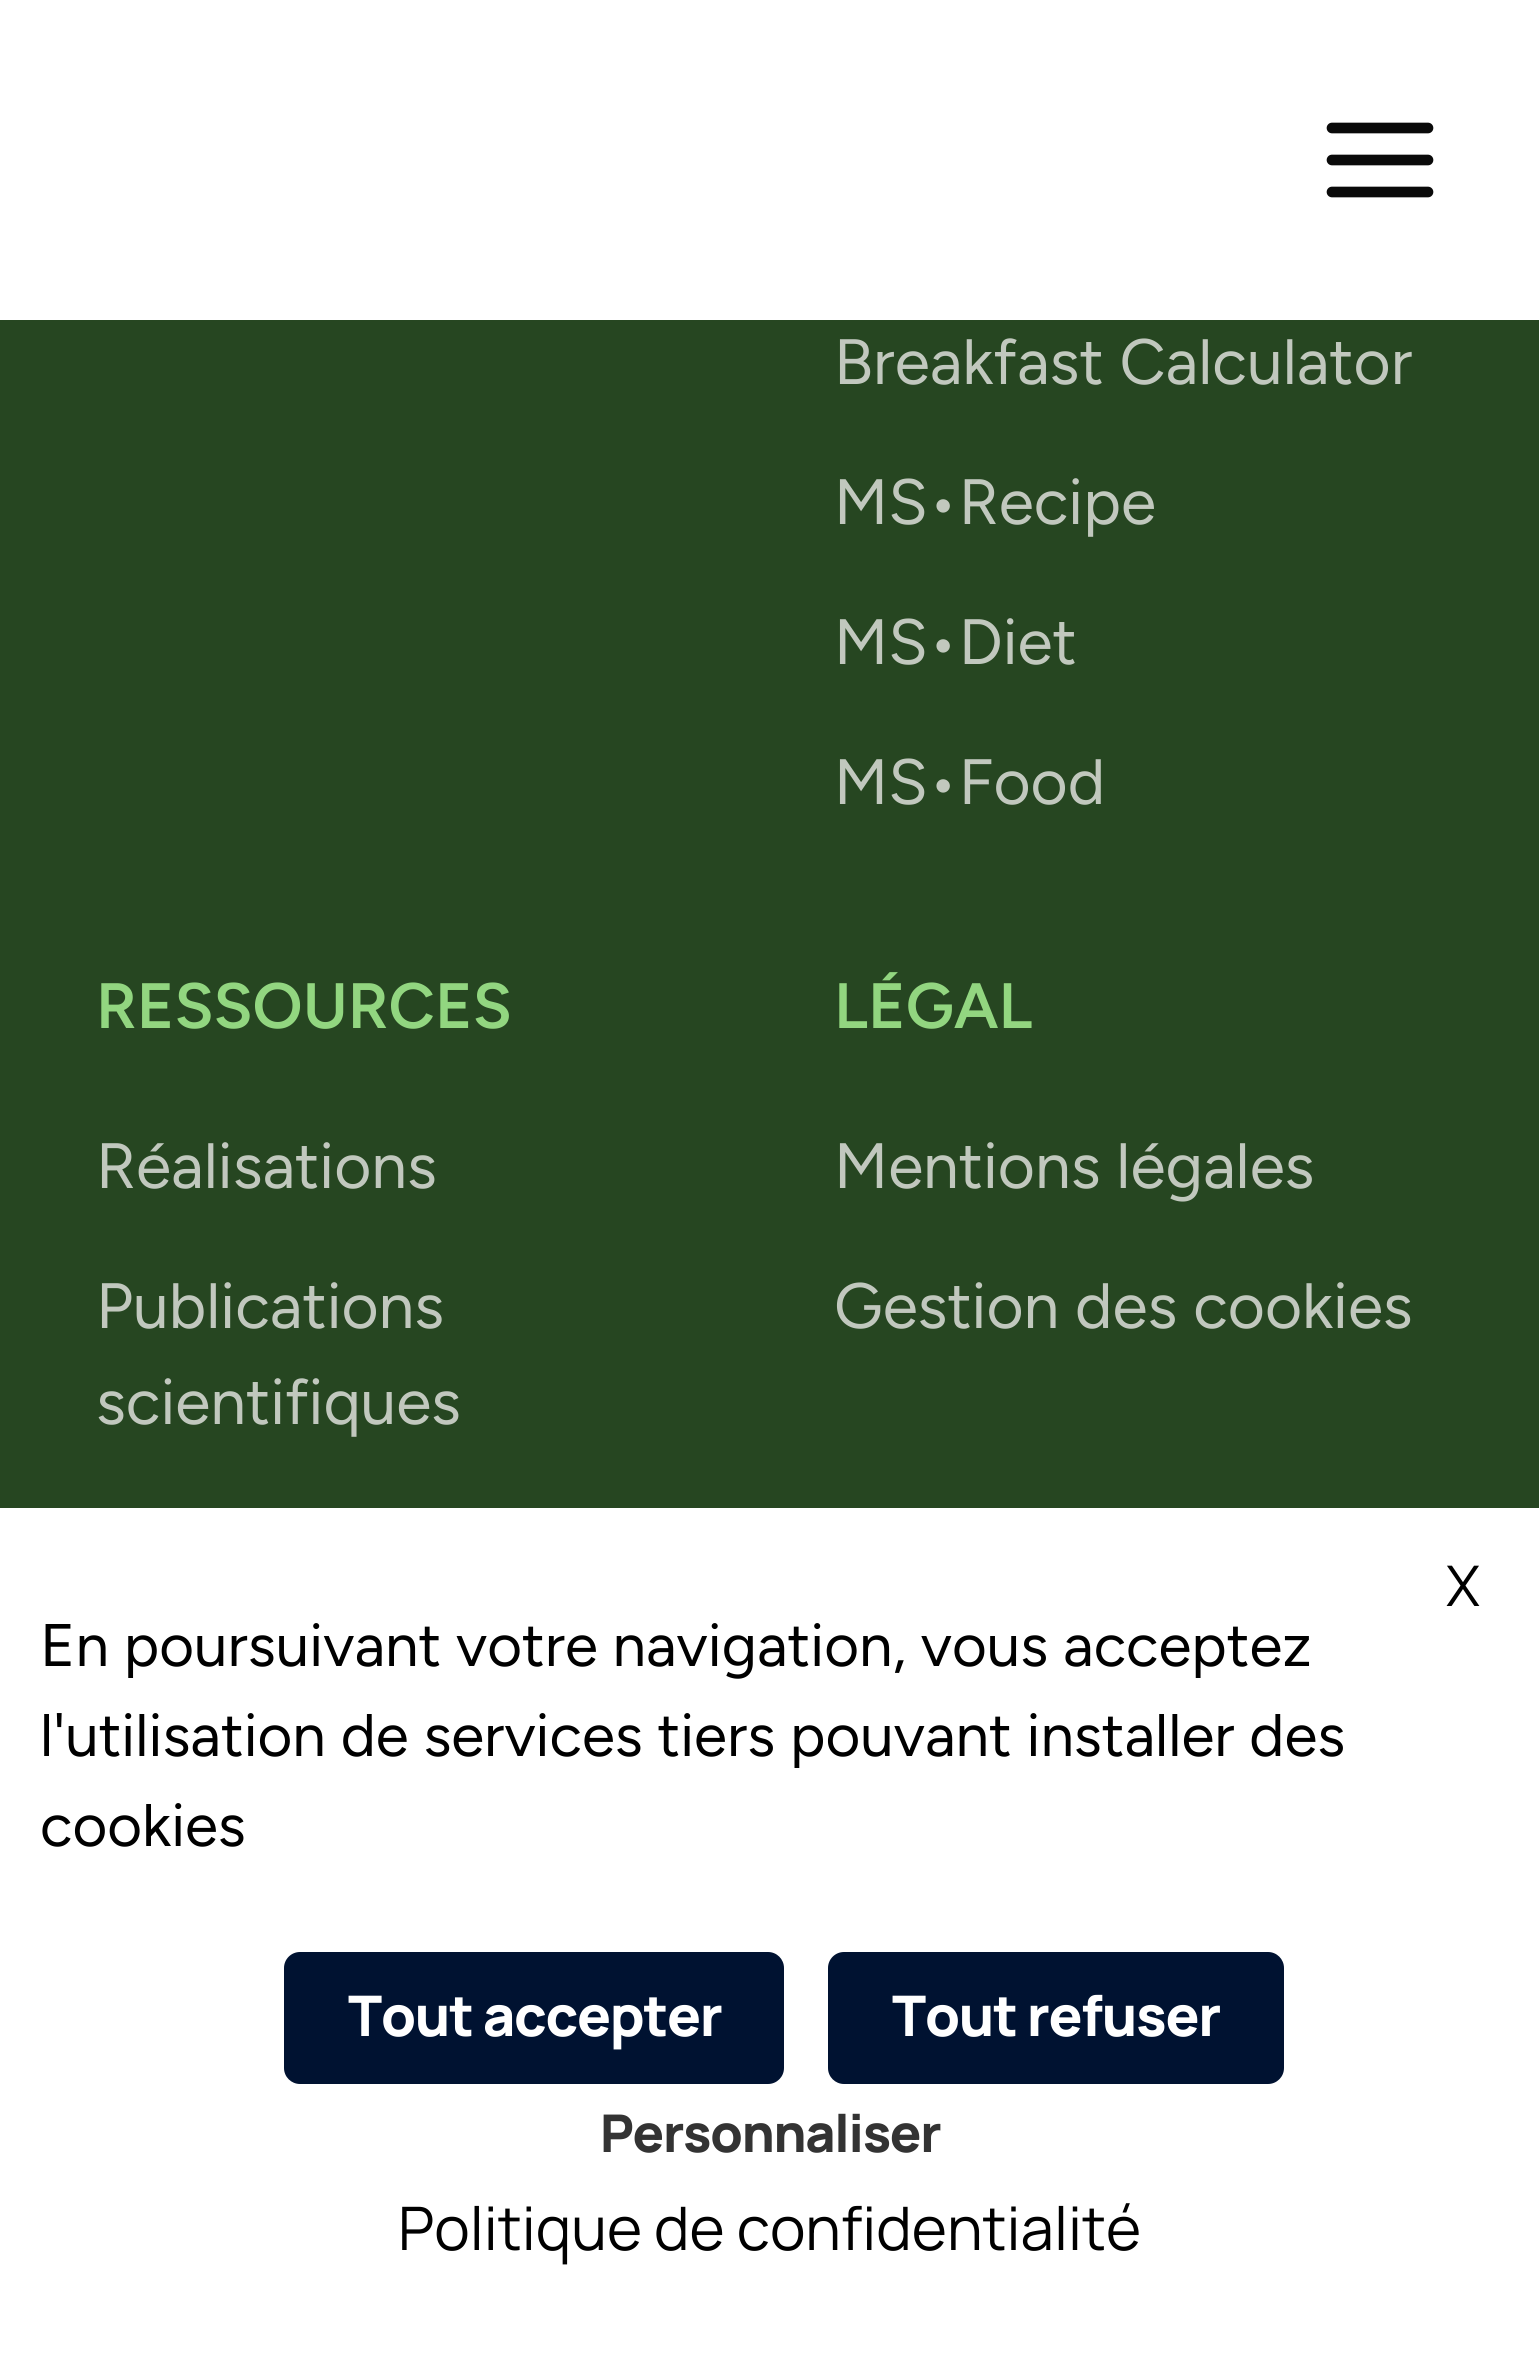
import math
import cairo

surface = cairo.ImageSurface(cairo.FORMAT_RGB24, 1539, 2372)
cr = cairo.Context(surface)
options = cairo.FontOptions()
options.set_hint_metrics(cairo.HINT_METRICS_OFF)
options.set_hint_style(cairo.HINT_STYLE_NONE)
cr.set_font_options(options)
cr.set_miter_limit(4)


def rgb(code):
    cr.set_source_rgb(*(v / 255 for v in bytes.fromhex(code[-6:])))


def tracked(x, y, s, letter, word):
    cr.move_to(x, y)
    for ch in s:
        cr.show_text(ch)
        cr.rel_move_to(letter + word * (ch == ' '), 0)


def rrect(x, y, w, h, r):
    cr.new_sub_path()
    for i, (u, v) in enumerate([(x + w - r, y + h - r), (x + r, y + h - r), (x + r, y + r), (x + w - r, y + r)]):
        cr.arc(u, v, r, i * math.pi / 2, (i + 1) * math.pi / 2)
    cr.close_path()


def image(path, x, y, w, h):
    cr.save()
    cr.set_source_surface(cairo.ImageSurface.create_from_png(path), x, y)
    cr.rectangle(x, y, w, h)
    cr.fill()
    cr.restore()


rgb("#264621")
cr.paint()
rgb("#ffffff")
cr.rectangle(0, 0, 1539, 320)
cr.fill()
image("img/1.png", 1326, 122, 108, 76)
cr.rectangle(0, 1508, 1539, 864)
cr.fill()
rgb("#001231")
rrect(284, 1952, 500, 132, 16)
cr.fill()
rrect(828, 1952, 456, 132, 16)
cr.fill()
cr.select_font_face("Figtree")
cr.set_font_size(64)
rgb("#c1c8be")
for x, y, s in [
    (834, 384, "Breakfast Calculator"),
    (834, 524, "MS•Recipe"),
    (834, 664, "MS•Diet"),
    (834, 804, "MS•Food"),
]:
    cr.move_to(x, y)
    cr.show_text(s)
cr.select_font_face("Figtree SemiBold")
rgb("#92d680")
cr.move_to(96, 1028)
cr.show_text("RESSOURCES")
cr.select_font_face("Figtree")
rgb("#c1c8be")
for x, y, s in [
    (96, 1188, "Réalisations"),
    (96, 1328, "Publications"),
    (96, 1424, "scientifiques"),
]:
    cr.move_to(x, y)
    cr.show_text(s)
cr.select_font_face("Figtree SemiBold")
rgb("#92d680")
cr.move_to(834, 1028)
cr.show_text("LÉGAL")
cr.select_font_face("Figtree")
rgb("#c1c8be")
cr.move_to(834, 1188)
cr.show_text("Mentions légales")
cr.move_to(834, 1328)
cr.show_text("Gestion des cookies")
cr.select_font_face("Manrope")
cr.set_font_size(56)
rgb("#000000")
cr.move_to(1446, 1606)
cr.show_text("X")
cr.select_font_face("Figtree")
cr.set_font_size(60)
for x, y, s in [
    (40, 1666, "En poursuivant votre navigation, vous acceptez"),
    (40, 1756, "l'utilisation de services tiers pouvant installer des"),
    (40, 1846, "cookies"),
]:
    cr.move_to(x, y)
    cr.show_text(s)
cr.select_font_face("Manrope ExtraBold")
cr.set_font_size(56)
rgb("#ffffff")
tracked(348, 2036, "Tout accepter", -1.25, 0)
tracked(892, 2036, "Tout refuser", -1.25, 0)
cr.set_font_size(52)
rgb("#333333")
tracked(600, 2152, "Personnaliser", -1.25, 0)
cr.select_font_face("Manrope")
cr.set_font_size(60)
rgb("#000000")
cr.move_to(398, 2250)
cr.show_text("Politique de confidentialité")
surface.write_to_png("page.png")
